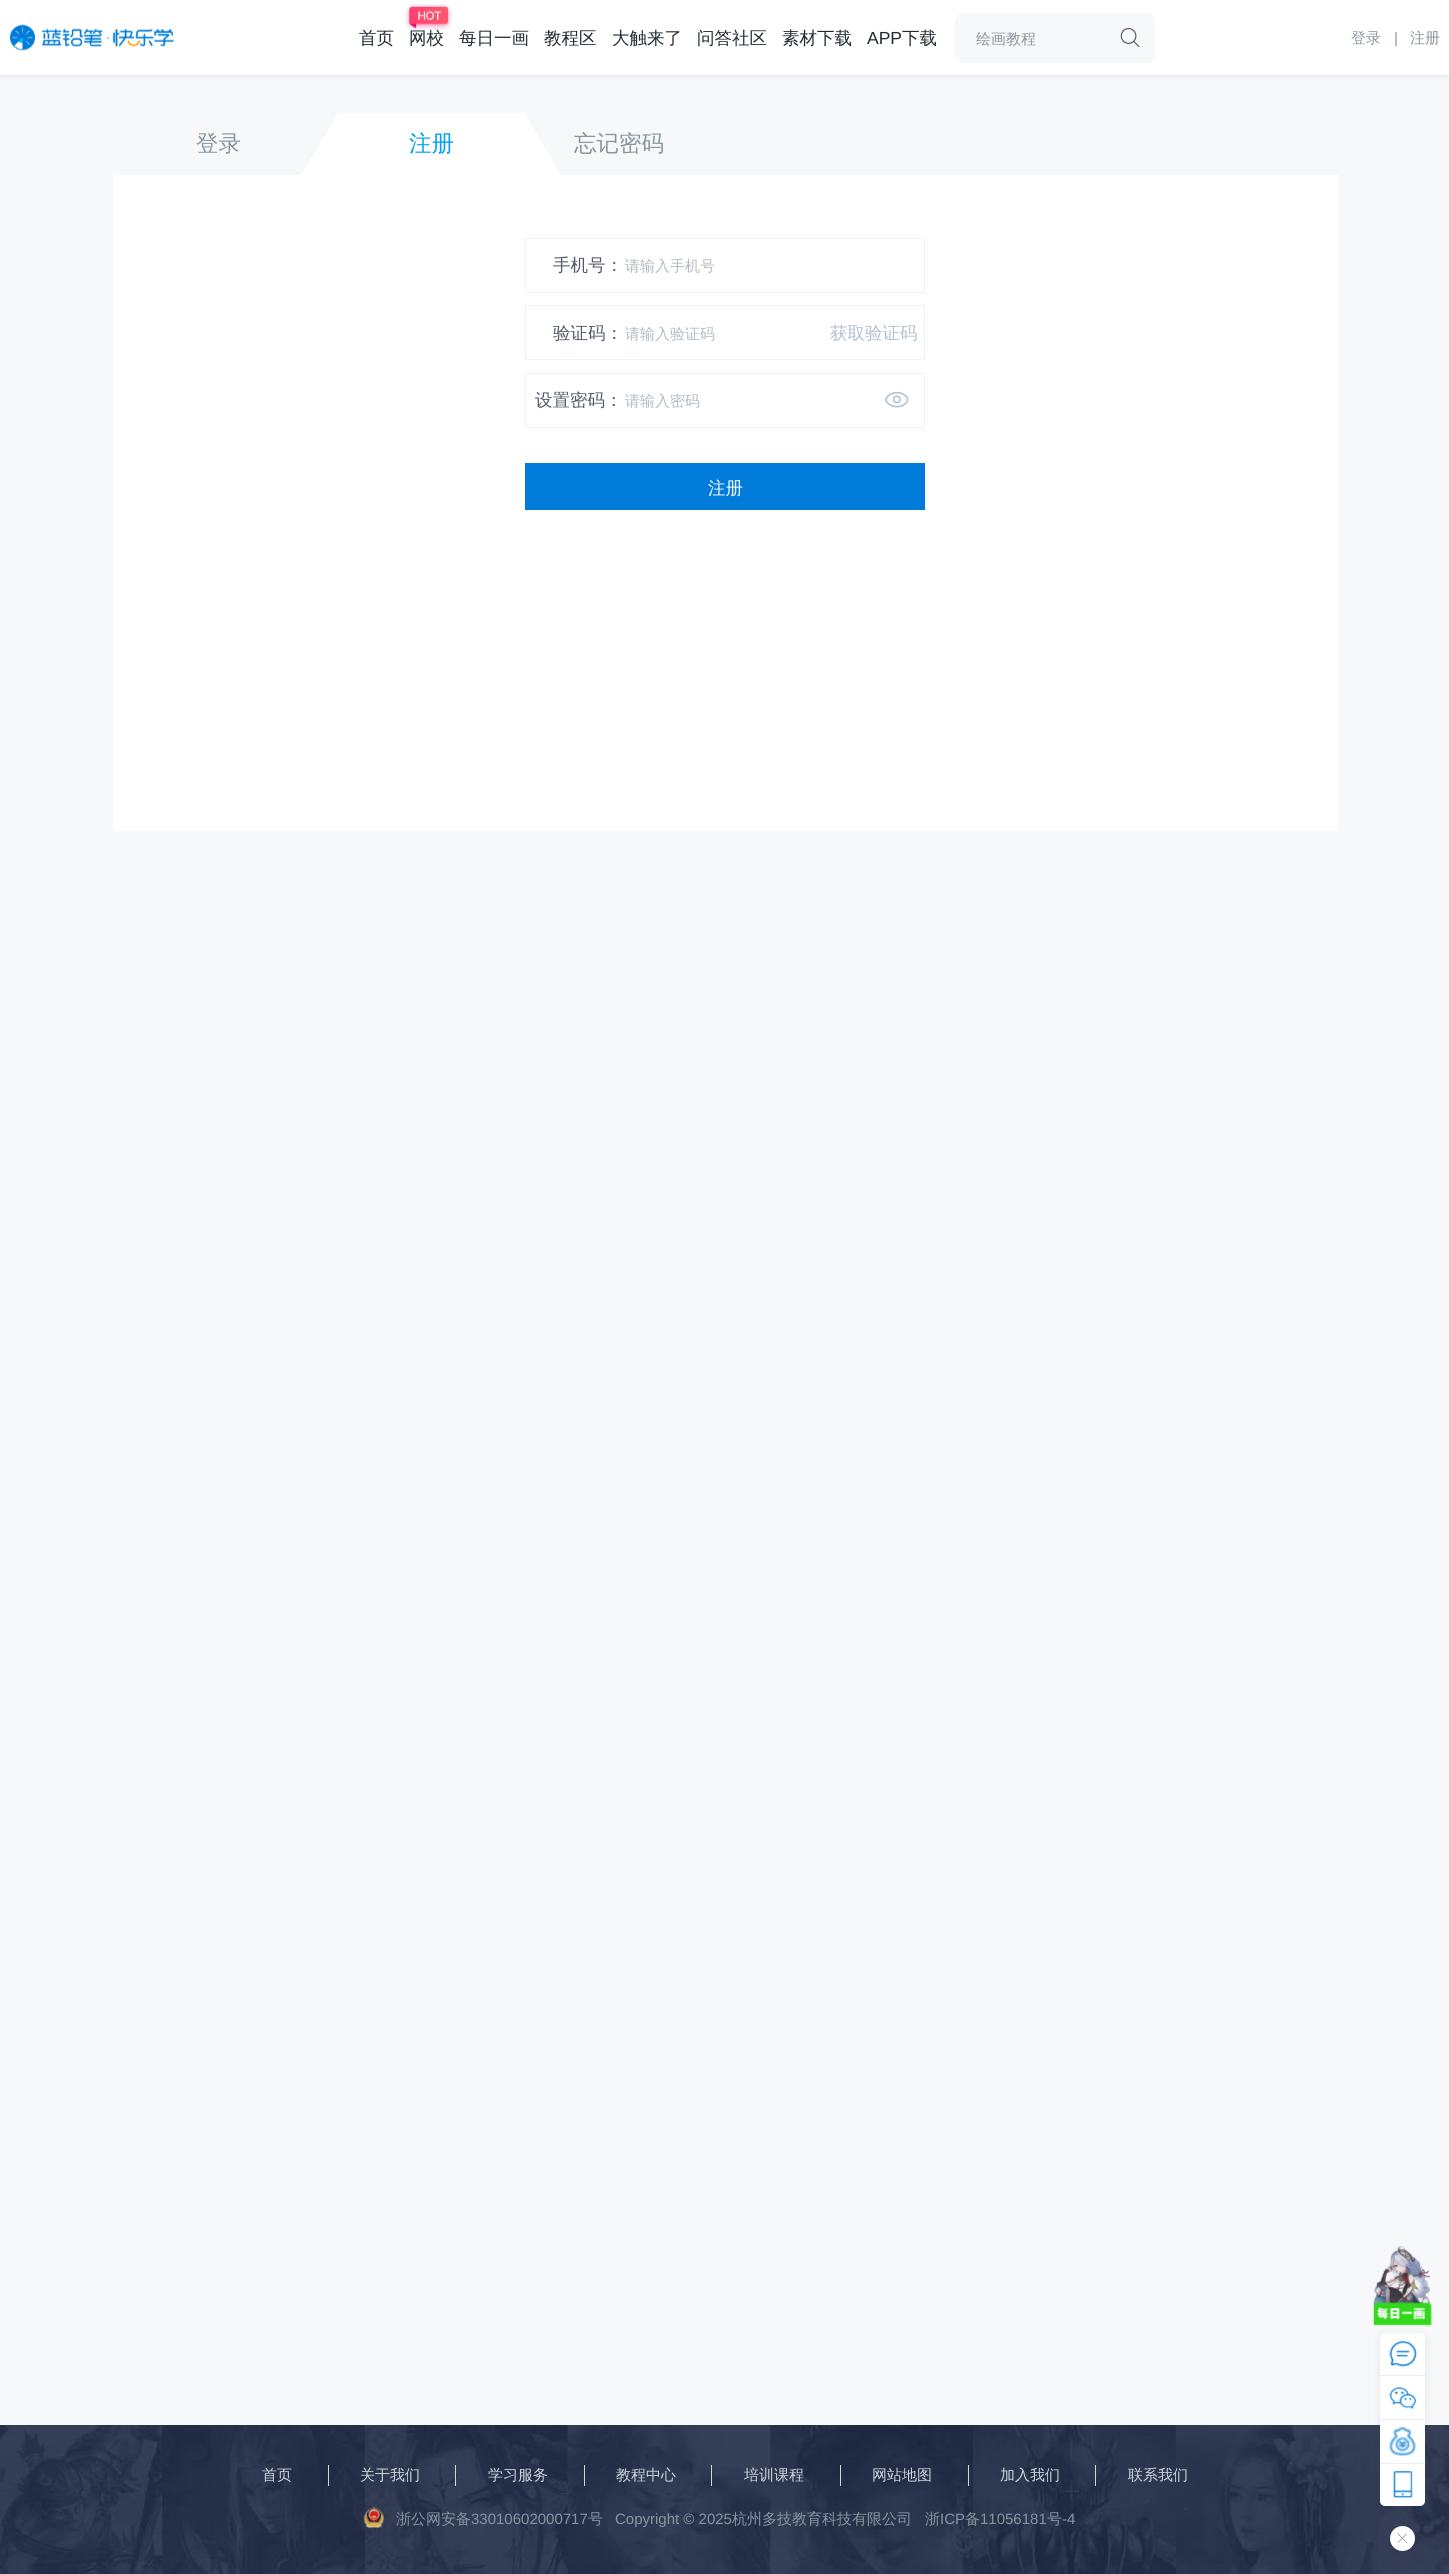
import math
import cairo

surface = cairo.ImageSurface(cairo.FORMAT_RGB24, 1449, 2574)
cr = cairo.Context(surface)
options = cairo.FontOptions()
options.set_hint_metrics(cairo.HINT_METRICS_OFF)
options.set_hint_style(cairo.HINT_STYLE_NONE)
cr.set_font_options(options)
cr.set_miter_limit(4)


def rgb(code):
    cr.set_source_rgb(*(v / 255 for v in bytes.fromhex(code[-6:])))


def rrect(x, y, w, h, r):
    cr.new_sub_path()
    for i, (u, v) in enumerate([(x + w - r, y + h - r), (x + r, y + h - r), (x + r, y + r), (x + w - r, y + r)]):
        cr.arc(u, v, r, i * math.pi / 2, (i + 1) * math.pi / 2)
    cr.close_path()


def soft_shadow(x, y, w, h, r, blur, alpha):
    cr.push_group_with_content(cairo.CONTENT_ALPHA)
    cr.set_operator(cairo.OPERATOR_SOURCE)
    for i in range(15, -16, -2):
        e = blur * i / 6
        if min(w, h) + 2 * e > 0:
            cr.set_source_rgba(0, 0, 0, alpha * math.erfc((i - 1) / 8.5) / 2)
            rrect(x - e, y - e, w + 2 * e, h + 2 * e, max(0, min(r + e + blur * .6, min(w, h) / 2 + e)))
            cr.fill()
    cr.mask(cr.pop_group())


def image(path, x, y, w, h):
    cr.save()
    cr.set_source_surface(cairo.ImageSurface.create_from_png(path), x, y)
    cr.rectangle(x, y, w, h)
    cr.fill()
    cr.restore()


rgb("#f6f8fa")
cr.paint()
rgb("#212b34")
soft_shadow(0, 1, 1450, 75, 0, 3, 0.1)
rgb("#ffffff")
cr.rectangle(0, 0, 1449, 75)
cr.fill()
image("img/1.png", 10, 24, 164, 27)
rgb("#f6f8fa")
rrect(955, 13, 200, 50, 8)
cr.fill()
image("img/3.png", 1120, 28, 20, 20)
rgb("#ffffff")
cr.rectangle(338, 113, 187, 62)
cr.fill()
cr.new_path()
cr.move_to(339, 112)
cr.line_to(339, 175)
cr.line_to(301, 175)
cr.close_path()
cr.fill()
cr.new_path()
cr.move_to(524, 175)
cr.line_to(524, 112)
cr.line_to(561, 175)
cr.close_path()
cr.fill()
cr.rectangle(113, 175, 1225, 656)
cr.fill()
cr.rectangle(525.5, 238.5, 399, 54)
rgb("#eef3f5")
cr.set_line_width(1)
cr.stroke()
cr.rectangle(525.5, 305.5, 399, 54)
cr.stroke()
cr.rectangle(525.5, 373.5, 399, 54)
cr.stroke()
image("img/4.png", 885, 391, 24, 17)
rgb("#027cdb")
cr.rectangle(525, 463, 400, 47)
cr.fill()
image("img/5.png", 0, 2425, 1449, 149)
for x, y, w, h, color in [
    (328, 2465, 1, 21, "#ced6dc"),
    (455, 2465, 1, 21, "#ced6dc"),
    (584, 2465, 1, 21, "#ced6dc"),
    (711, 2465, 1, 21, "#ced6dc"),
    (840, 2465, 1, 21, "#ced6dc"),
    (968, 2465, 1, 21, "#ced6dc"),
    (1095, 2465, 1, 21, "#ced6dc"),
]:
    rgb(color)
    cr.rectangle(x, y, w, h)
    cr.fill()
image("img/6.png", 363, 2507, 21, 21)
image("img/7.png", 1373, 2246, 59, 80)
rgb("#000000")
soft_shadow(1380, 2335, 45, 174, 5, 4, 0.09)
rgb("#ffffff")
rrect(1380, 2333, 45, 173, 5)
cr.fill()
image("img/8.png", 1389, 2341, 28, 26)
rgb("#eeeeee")
cr.rectangle(1380, 2375, 45, 1)
cr.fill()
image("img/9.png", 1389, 2387, 27, 23)
cr.rectangle(1380, 2419, 45, 1)
cr.fill()
image("img/10.png", 1389, 2426, 27, 31)
cr.rectangle(1380, 2463, 45, 1)
cr.fill()
image("img/11.png", 1393, 2471, 20, 28)
rgb("#ffffff")
cr.arc(1402.5, 2538.5, 12.5, 0, 2 * math.pi)
cr.fill()
image("img/12.png", 1397, 2533, 10, 10)
cr.select_font_face("WenQuanYi Zen Hei Medium")
cr.set_font_size(17.5)
rgb("#212b34")
cr.move_to(359, 44)
cr.show_text("首页")
cr.move_to(409, 44)
cr.show_text("网校")
image("img/2.png", 405, 4, 47, 26)
for x, y, s in [
    (459, 44, "每日一画"),
    (544, 44, "教程区"),
    (612, 44, "大触来了"),
    (697, 44, "问答社区"),
    (782, 44, "素材下载"),
]:
    cr.move_to(x, y)
    cr.show_text(s)
cr.select_font_face("Liberation Sans")
cr.move_to(867, 44)
cr.show_text("APP")
cr.select_font_face("WenQuanYi Zen Hei Medium")
cr.move_to(902, 44)
cr.show_text("下载")
cr.set_font_size(15)
rgb("#87959f")
cr.move_to(976, 44)
cr.show_text("绘画教程")
cr.move_to(1351, 43)
cr.show_text("登录")
cr.select_font_face("Liberation Sans")
cr.move_to(1394, 43)
cr.show_text("|")
cr.select_font_face("WenQuanYi Zen Hei Medium")
cr.move_to(1410, 43)
cr.show_text("注册")
cr.set_font_size(22.5)
cr.move_to(196, 151)
cr.show_text("登录")
rgb("#00a1f5")
cr.move_to(409, 151)
cr.show_text("注册")
rgb("#87959f")
cr.move_to(574, 151)
cr.show_text("忘记密码")
cr.set_font_size(17.5)
rgb("#525a67")
cr.move_to(553, 271)
cr.show_text("手机号：")
cr.set_font_size(15)
rgb("#b1bbc3")
cr.move_to(625, 271)
cr.show_text("请输入手机号")
cr.set_font_size(17.5)
rgb("#525a67")
cr.move_to(553, 339)
cr.show_text("验证码：")
cr.set_font_size(15)
rgb("#b1bbc3")
cr.move_to(625, 339)
cr.show_text("请输入验证码")
cr.set_font_size(17.5)
rgb("#afc0d1")
cr.move_to(830, 339)
cr.show_text("获取验证码")
rgb("#525a67")
cr.move_to(535, 406)
cr.show_text("设置密码：")
cr.set_font_size(15)
rgb("#b1bbc3")
cr.move_to(625, 406)
cr.show_text("请输入密码")
cr.set_font_size(17.5)
rgb("#ffffff")
cr.move_to(708, 494)
cr.show_text("注册")
cr.set_font_size(15)
rgb("#ced6dc")
for x, y, s in [
    (262, 2480, "首页"),
    (360, 2480, "关于我们"),
    (488, 2480, "学习服务"),
    (616, 2480, "教程中心"),
    (744, 2480, "培训课程"),
    (872, 2480, "网站地图"),
    (1000, 2480, "加入我们"),
    (1128, 2480, "联系我们"),
]:
    cr.move_to(x, y)
    cr.show_text(s)
rgb("#87959f")
cr.move_to(396, 2524)
cr.show_text("浙公网安备")
cr.select_font_face("Liberation Sans")
cr.move_to(471, 2524)
cr.show_text("33010602000717")
cr.select_font_face("WenQuanYi Zen Hei Medium")
cr.move_to(588, 2524)
cr.show_text("号")
cr.select_font_face("Liberation Sans")
cr.move_to(615, 2524)
cr.show_text("Copyright © 2025")
cr.select_font_face("WenQuanYi Zen Hei Medium")
cr.move_to(732, 2524)
cr.show_text("杭州多技教育科技有限公司")
cr.move_to(925, 2524)
cr.show_text("浙")
cr.select_font_face("Liberation Sans")
cr.move_to(940, 2524)
cr.show_text("ICP")
cr.select_font_face("WenQuanYi Zen Hei Medium")
cr.move_to(965, 2524)
cr.show_text("备")
cr.select_font_face("Liberation Sans")
cr.move_to(980, 2524)
cr.show_text("11056181")
cr.select_font_face("WenQuanYi Zen Hei Medium")
cr.move_to(1047, 2524)
cr.show_text("号")
cr.select_font_face("Liberation Sans")
cr.move_to(1062, 2524)
cr.show_text("-4")
surface.write_to_png("page.png")
